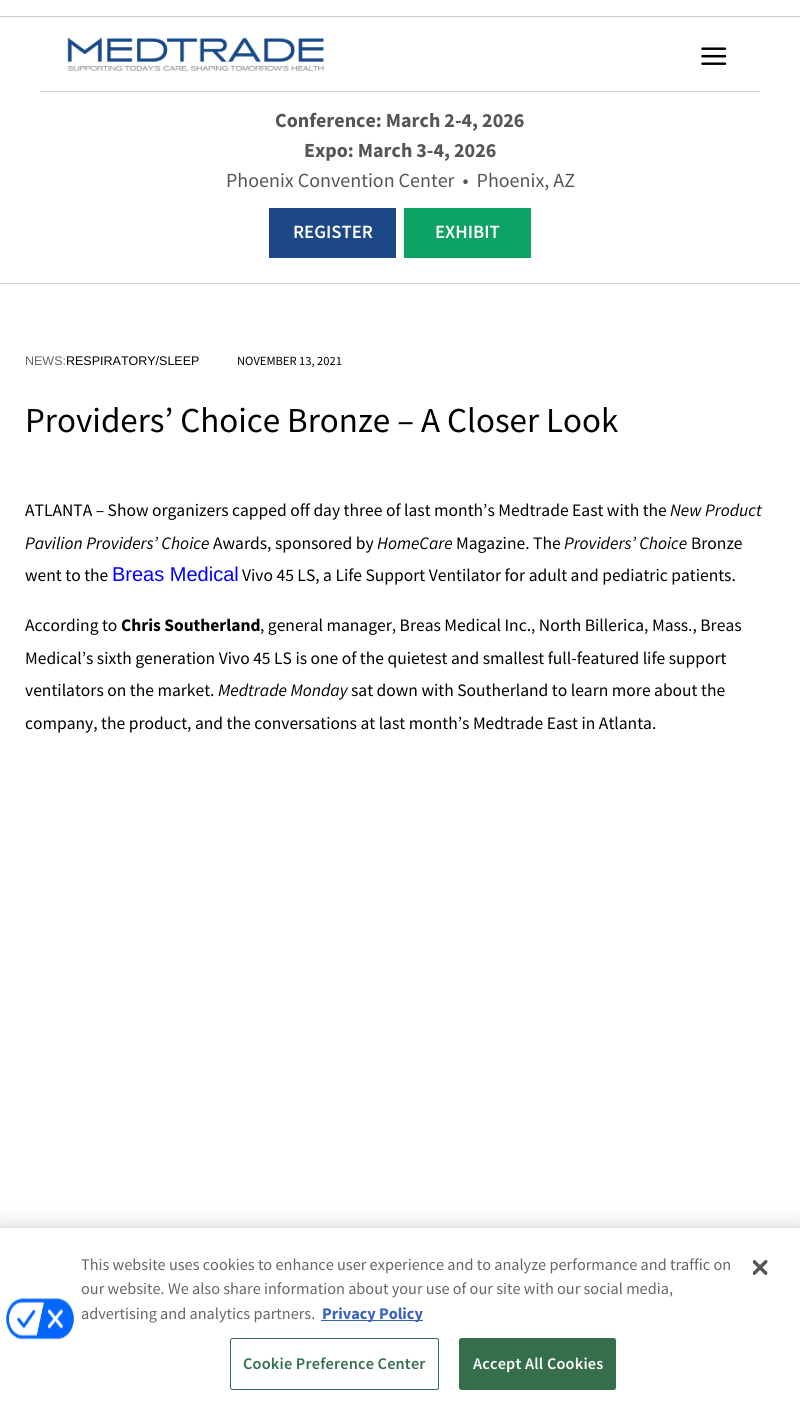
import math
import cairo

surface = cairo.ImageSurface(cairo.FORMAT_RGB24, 800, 1409)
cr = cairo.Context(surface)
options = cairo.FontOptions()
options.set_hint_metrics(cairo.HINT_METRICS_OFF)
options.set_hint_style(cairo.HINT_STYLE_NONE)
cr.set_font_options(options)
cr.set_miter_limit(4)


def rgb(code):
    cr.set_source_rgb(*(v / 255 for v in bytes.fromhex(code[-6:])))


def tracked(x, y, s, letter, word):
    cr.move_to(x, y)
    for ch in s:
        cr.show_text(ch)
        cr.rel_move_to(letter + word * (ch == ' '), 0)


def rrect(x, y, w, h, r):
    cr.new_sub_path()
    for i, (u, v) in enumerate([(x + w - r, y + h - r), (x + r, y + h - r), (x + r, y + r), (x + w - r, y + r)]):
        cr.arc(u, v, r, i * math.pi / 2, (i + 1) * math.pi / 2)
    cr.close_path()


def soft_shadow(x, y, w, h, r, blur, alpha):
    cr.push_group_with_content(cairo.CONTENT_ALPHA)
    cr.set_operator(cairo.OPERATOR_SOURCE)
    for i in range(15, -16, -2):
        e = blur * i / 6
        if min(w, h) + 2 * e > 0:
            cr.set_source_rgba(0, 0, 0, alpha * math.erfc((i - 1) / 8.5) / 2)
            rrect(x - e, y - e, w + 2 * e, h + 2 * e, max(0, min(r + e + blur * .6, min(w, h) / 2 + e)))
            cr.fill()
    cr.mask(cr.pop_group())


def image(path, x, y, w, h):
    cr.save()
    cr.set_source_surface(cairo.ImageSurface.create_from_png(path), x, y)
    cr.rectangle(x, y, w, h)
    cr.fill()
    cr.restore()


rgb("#ffffff")
cr.paint()
for x, y, w, h, color in [
    (0, 283, 800, 1, "#cccccc"),
    (0, 16, 800, 1, "#cccccc"),
    (40, 91, 720, 1, "#cccccc"),
]:
    rgb(color)
    cr.rectangle(x, y, w, h)
    cr.fill()
image("img/1.png", 67, 37, 257, 35)
image("img/2.png", 701, 47, 26, 18)
rgb("#1d4887")
cr.rectangle(269, 208, 127, 50)
cr.fill()
rgb("#0ca364")
cr.rectangle(404, 208, 127, 50)
cr.fill()
rgb("#000000")
soft_shadow(0, 1228, 800, 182, 0, 11, 0.2)
rgb("#ffffff")
cr.rectangle(0, 1228, 800, 181)
cr.fill()
image("img/3.png", 6, 1298, 68, 42)
rgb("#3860be")
cr.rectangle(321, 1320, 102, 1)
cr.fill()
rrect(230.5, 1338.5, 208, 51, 2)
rgb("#346e4a")
cr.set_line_width(1)
cr.stroke()
rrect(459.5, 1338.5, 156, 51, 2)
cr.fill_preserve()
cr.stroke()
image("img/4.png", 753, 1260, 15, 15)
cr.select_font_face("Source Sans Pro", cairo.FONT_SLANT_NORMAL, cairo.FONT_WEIGHT_BOLD)
cr.set_font_size(20)
rgb("#555555")
cr.move_to(275, 127)
cr.show_text("Conference: March 2-4, 2026")
cr.move_to(304, 157)
cr.show_text("Expo: March 3-4, 2026")
cr.select_font_face("Source Sans Pro")
cr.move_to(226, 187)
cr.show_text("Phoenix Convention Center  •  Phoenix, AZ")
cr.select_font_face("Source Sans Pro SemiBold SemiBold")
cr.set_font_size(18.75)
rgb("#ffffff")
cr.move_to(293, 238)
cr.show_text("REGISTER")
cr.move_to(435, 238)
cr.show_text("EXHIBIT")
cr.select_font_face("Liberation Sans")
cr.set_font_size(12.5)
rgb("#666666")
cr.move_to(25, 365)
cr.show_text("NEWS:")
rgb("#000000")
cr.move_to(66, 365)
cr.show_text("RESPIRATORY/SLEEP")
cr.select_font_face("Source Sans Pro")
cr.move_to(237, 365)
cr.show_text("NOVEMBER 13, 2021")
cr.set_font_size(35)
cr.move_to(25, 432)
cr.show_text("Providers’ Choice Bronze – A Closer Look")
cr.set_font_size(17.5)
cr.move_to(25, 516)
cr.show_text("ATLANTA – Show organizers capped off day three of last month’s Medtrade East with the")
cr.select_font_face("Source Sans Pro", cairo.FONT_SLANT_ITALIC)
cr.move_to(670, 516)
cr.show_text("New Product")
cr.move_to(25, 549)
cr.show_text("Pavilion Providers’ Choice")
cr.select_font_face("Source Sans Pro")
cr.move_to(213, 549)
cr.show_text("Awards, sponsored by")
cr.select_font_face("Source Sans Pro", cairo.FONT_SLANT_ITALIC)
cr.move_to(377, 549)
cr.show_text("HomeCare")
cr.select_font_face("Source Sans Pro")
cr.move_to(456, 549)
cr.show_text("Magazine. The")
cr.select_font_face("Source Sans Pro", cairo.FONT_SLANT_ITALIC)
cr.move_to(564, 549)
cr.show_text("Providers’ Choice")
cr.select_font_face("Source Sans Pro")
cr.move_to(691, 549)
cr.show_text("Bronze")
cr.move_to(25, 581)
cr.show_text("went to the")
cr.select_font_face("Liberation Sans")
cr.set_font_size(20)
rgb("#0000ff")
cr.move_to(112, 581)
cr.show_text("Breas Medical")
cr.select_font_face("Source Sans Pro")
cr.set_font_size(17.5)
rgb("#000000")
cr.move_to(242, 581)
cr.show_text("Vivo 45 LS, a Life Support Ventilator for adult and pediatric patients.")
cr.move_to(25, 631)
cr.show_text("According to")
cr.select_font_face("Source Sans Pro", cairo.FONT_SLANT_NORMAL, cairo.FONT_WEIGHT_BOLD)
cr.move_to(121, 631)
cr.show_text("Chris Southerland")
cr.select_font_face("Source Sans Pro")
for x, y, s in [
    (260, 631, ", general manager, Breas Medical Inc., North Billerica, Mass., Breas"),
    (25, 664, "Medical’s sixth generation Vivo 45 LS is one of the quietest and smallest full-featured life support"),
    (25, 696, "ventilators on the market."),
]:
    cr.move_to(x, y)
    cr.show_text(s)
cr.select_font_face("Source Sans Pro", cairo.FONT_SLANT_ITALIC)
cr.move_to(218, 696)
cr.show_text("Medtrade Monday")
cr.select_font_face("Source Sans Pro")
cr.move_to(351, 696)
cr.show_text("sat down with Southerland to learn more about the")
cr.move_to(25, 729)
cr.show_text("company, the product, and the conversations at last month’s Medtrade East in Atlanta.")
cr.set_font_size(16.25)
rgb("#666666")
for x, y, s in [
    (81, 1270, "This website uses cookies to enhance user experience and to analyze performance and traffic on"),
    (81, 1294, "our website. We also share information about your use of our site with our social media,"),
    (81, 1319, "advertising and analytics partners."),
]:
    cr.move_to(x, y)
    cr.show_text(s)
cr.select_font_face("Source Sans Pro", cairo.FONT_SLANT_NORMAL, cairo.FONT_WEIGHT_BOLD)
rgb("#3860be")
cr.move_to(322, 1319)
cr.show_text("Privacy Policy")
cr.select_font_face("Source Sans Pro SemiBold SemiBold")
rgb("#346e4a")
tracked(243, 1369, "Cookie Preference Center", 0.2, 0)
rgb("#ffffff")
tracked(473, 1369, "Accept All Cookies", 0.2, 0)
surface.write_to_png("page.png")
